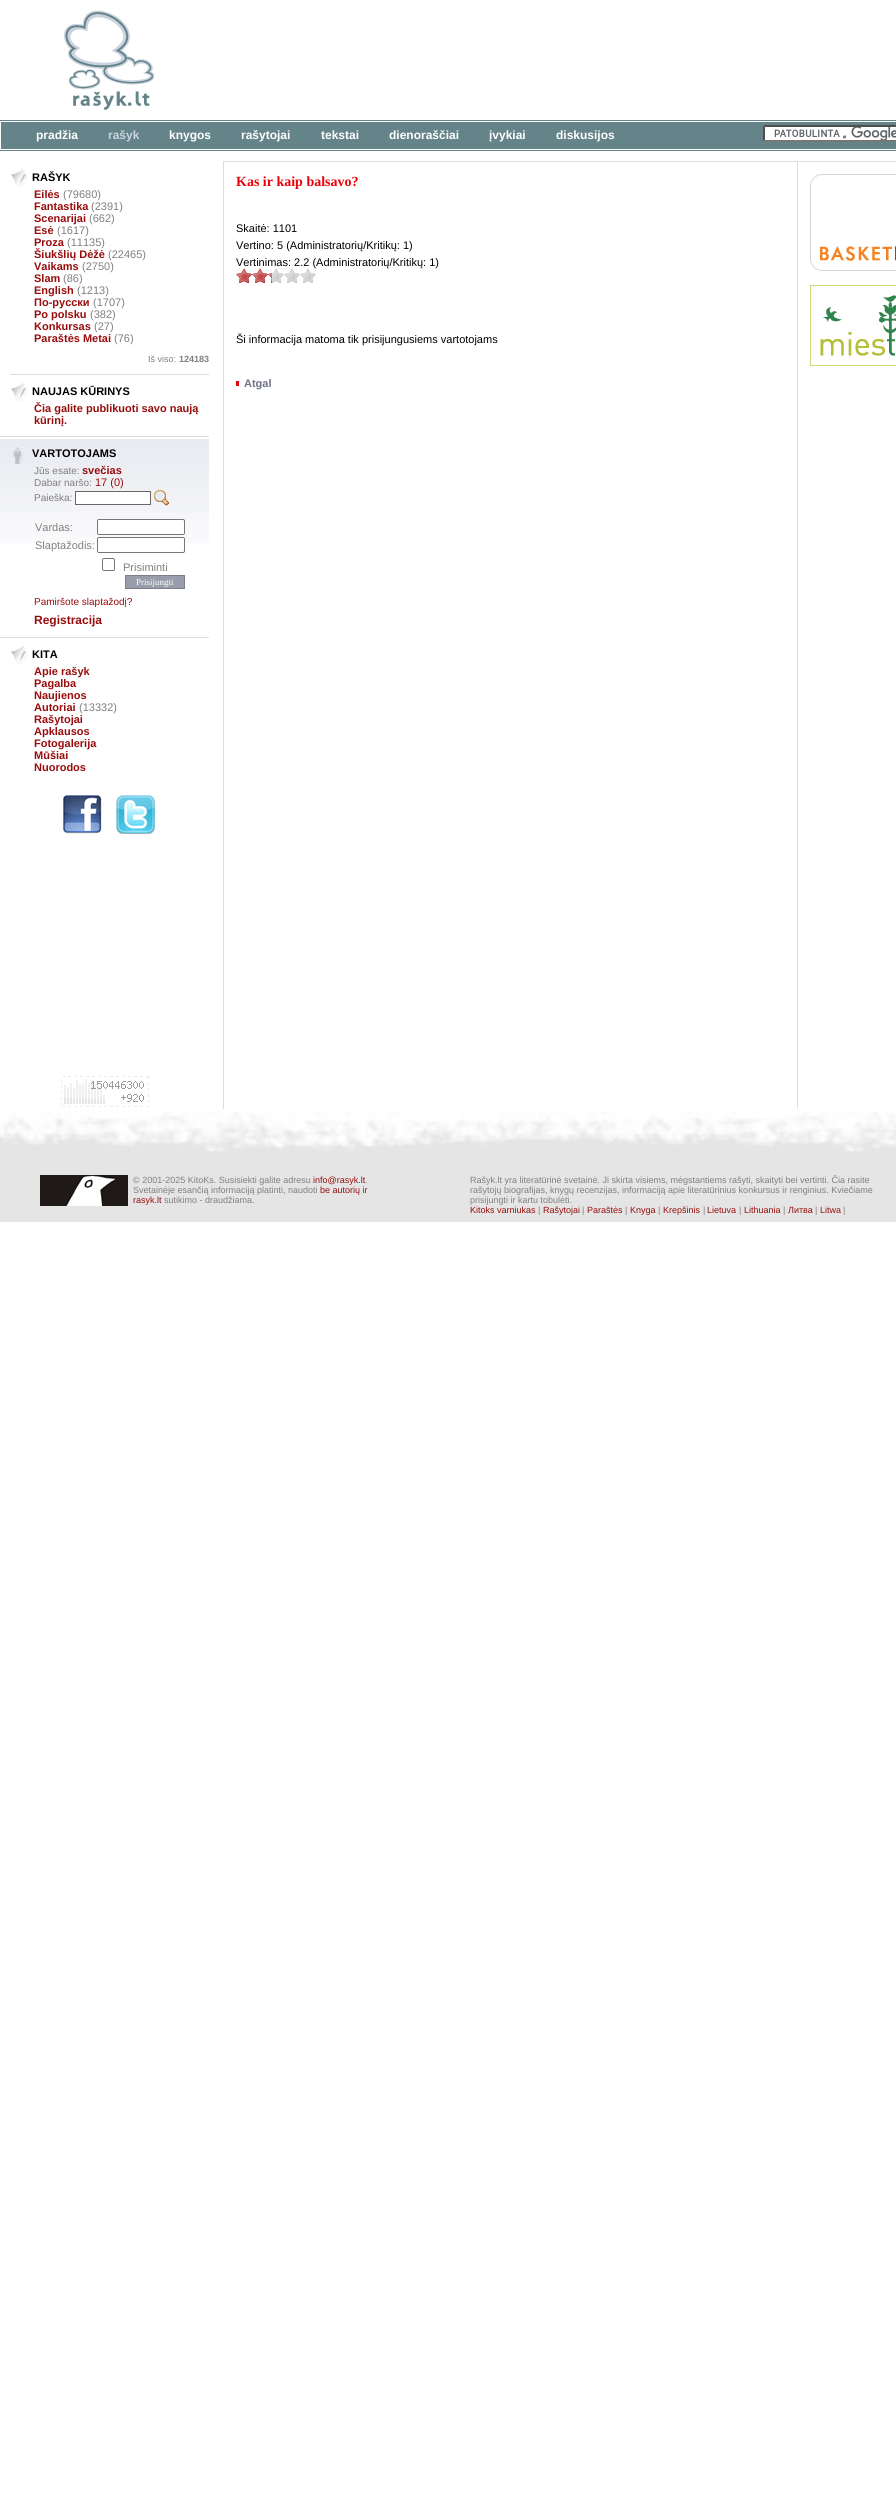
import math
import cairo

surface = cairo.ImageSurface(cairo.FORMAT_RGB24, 896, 2503)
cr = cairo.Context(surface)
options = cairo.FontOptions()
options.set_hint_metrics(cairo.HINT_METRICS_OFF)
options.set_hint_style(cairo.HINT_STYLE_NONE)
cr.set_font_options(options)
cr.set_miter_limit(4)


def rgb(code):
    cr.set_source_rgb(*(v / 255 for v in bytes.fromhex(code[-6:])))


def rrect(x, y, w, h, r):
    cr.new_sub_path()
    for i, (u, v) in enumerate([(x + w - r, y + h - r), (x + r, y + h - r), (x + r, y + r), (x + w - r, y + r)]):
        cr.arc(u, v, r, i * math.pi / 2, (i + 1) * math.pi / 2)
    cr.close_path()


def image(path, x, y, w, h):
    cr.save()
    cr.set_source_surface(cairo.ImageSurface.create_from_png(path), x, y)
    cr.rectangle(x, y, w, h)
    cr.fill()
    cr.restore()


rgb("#ffffff")
cr.paint()
image("img/1.png", 64, 10, 91, 100)
for x, y, w, h, color in [
    (0, 120, 896, 1, "#658489"),
    (0, 150, 896, 1, "#658489"),
    (1, 122, 895, 27, "#658489"),
    (763, 125, 133, 17, "#ffffff"),
]:
    rgb(color)
    cr.rectangle(x, y, w, h)
    cr.fill()
image("img/2.png", 774, 127, 122, 13)
rgb("#4f4f4f")
cr.new_path()
cr.move_to(763, 125)
cr.line_to(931, 125)
cr.line_to(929, 127)
cr.line_to(765, 127)
cr.close_path()
cr.fill()
rgb("#767676")
cr.new_path()
cr.move_to(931, 142)
cr.line_to(763, 142)
cr.line_to(765, 140)
cr.line_to(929, 140)
cr.close_path()
cr.fill()
rgb("#4f4f4f")
cr.new_path()
cr.move_to(763, 142)
cr.line_to(763, 125)
cr.line_to(765, 127)
cr.line_to(765, 140)
cr.close_path()
cr.fill()
image("img/3.png", 11, 169, 17, 19)
rgb("#dddddd")
cr.rectangle(10, 374, 199, 1)
cr.fill()
image("img/3.png", 11, 383, 17, 19)
image("img/4.png", 0, 439, 209, 104)
cr.rectangle(0, 436, 209, 1)
cr.fill()
image("img/5.png", 13, 444, 10, 20)
rgb("#ffffff")
cr.rectangle(75.5, 491.5, 75, 13)
cr.fill_preserve()
rgb("#666666")
cr.set_line_width(1)
cr.stroke()
image("img/6.png", 154, 490, 16, 16)
rgb("#ffffff")
rrect(97.5, 519.5, 87, 15, 1.5)
cr.fill_preserve()
rgb("#767676")
cr.stroke()
rgb("#ffffff")
rrect(97.5, 537.5, 87, 15, 1.5)
cr.fill_preserve()
rgb("#767676")
cr.stroke()
rrect(102.5, 558.5, 12, 12, 1.5)
cr.stroke()
rgb("#999cab")
cr.rectangle(125.5, 575.5, 59, 13)
cr.fill_preserve()
rgb("#7c7e89")
cr.stroke()
rgb("#dddddd")
cr.rectangle(0, 637, 209, 1)
cr.fill()
image("img/3.png", 11, 646, 17, 19)
image("img/7.png", 63, 795, 39, 39)
image("img/8.png", 116, 795, 40, 39)
image("img/9.png", 61, 1076, 88, 31)
rgb("#dbdde4")
cr.rectangle(223, 161, 673, 1)
cr.fill()
cr.rectangle(223, 161, 1, 948)
cr.fill()
image("img/10.png", 236, 273, 4, 10)
image("img/13.png", 248, 273, 4, 10)
image("img/10.png", 252, 273, 4, 10)
image("img/13.png", 264, 273, 4, 10)
image("img/10.png", 268, 273, 4, 10)
image("img/16.png", 280, 273, 4, 10)
image("img/17.png", 284, 273, 4, 10)
image("img/16.png", 296, 273, 4, 10)
image("img/17.png", 300, 273, 4, 10)
image("img/16.png", 312, 273, 4, 10)
rgb("#ec0009")
cr.rectangle(236, 381, 3, 5)
cr.fill()
rgb("#dbdde4")
cr.rectangle(797, 161, 1, 948)
cr.fill()
image("img/18.png", 810, 174, 86, 97)
image("img/19.png", 810, 285, 86, 81)
image("img/20.png", 0, 1111, 896, 44)
rgb("#e5e5e5")
cr.rectangle(0, 1155, 896, 67)
cr.fill()
image("img/21.png", 40, 1175, 88, 31)
cr.select_font_face("Liberation Sans", cairo.FONT_SLANT_NORMAL, cairo.FONT_WEIGHT_BOLD)
cr.set_font_size(12)
rgb("#ffffff")
cr.move_to(36, 139)
cr.show_text("pradžia")
rgb("#ccd3e0")
cr.move_to(108, 139)
cr.show_text("rašyk")
rgb("#ffffff")
for x, y, s in [
    (169, 139, "knygos"),
    (241, 139, "rašytojai"),
    (321, 139, "tekstai"),
    (389, 139, "dienoraščiai"),
    (489, 139, "įvykiai"),
    (556, 139, "diskusijos"),
]:
    cr.move_to(x, y)
    cr.show_text(s)
cr.set_font_size(11)
rgb("#000000")
cr.move_to(32, 181)
cr.show_text("RAŠYK")
rgb("#980c0c")
cr.move_to(34, 198)
cr.show_text("Eilės")
cr.select_font_face("Liberation Sans")
rgb("#7f7f7f")
cr.move_to(63, 198)
cr.show_text("(79680)")
cr.select_font_face("Liberation Sans", cairo.FONT_SLANT_NORMAL, cairo.FONT_WEIGHT_BOLD)
rgb("#980c0c")
cr.move_to(34, 210)
cr.show_text("Fantastika")
cr.select_font_face("Liberation Sans")
rgb("#7f7f7f")
cr.move_to(91, 210)
cr.show_text("(2391)")
cr.select_font_face("Liberation Sans", cairo.FONT_SLANT_NORMAL, cairo.FONT_WEIGHT_BOLD)
rgb("#980c0c")
cr.move_to(34, 222)
cr.show_text("Scenarijai")
cr.select_font_face("Liberation Sans")
rgb("#7f7f7f")
cr.move_to(89, 222)
cr.show_text("(662)")
cr.select_font_face("Liberation Sans", cairo.FONT_SLANT_NORMAL, cairo.FONT_WEIGHT_BOLD)
rgb("#980c0c")
cr.move_to(34, 234)
cr.show_text("Esė")
cr.select_font_face("Liberation Sans")
rgb("#7f7f7f")
cr.move_to(57, 234)
cr.show_text("(1617)")
cr.select_font_face("Liberation Sans", cairo.FONT_SLANT_NORMAL, cairo.FONT_WEIGHT_BOLD)
rgb("#980c0c")
cr.move_to(34, 246)
cr.show_text("Proza")
cr.select_font_face("Liberation Sans")
rgb("#7f7f7f")
cr.move_to(67, 246)
cr.show_text("(11135)")
cr.select_font_face("Liberation Sans", cairo.FONT_SLANT_NORMAL, cairo.FONT_WEIGHT_BOLD)
rgb("#980c0c")
cr.move_to(34, 258)
cr.show_text("Šiukšlių Dėžė")
cr.select_font_face("Liberation Sans")
rgb("#7f7f7f")
cr.move_to(108, 258)
cr.show_text("(22465)")
cr.select_font_face("Liberation Sans", cairo.FONT_SLANT_NORMAL, cairo.FONT_WEIGHT_BOLD)
rgb("#980c0c")
cr.move_to(34, 270)
cr.show_text("Vaikams")
cr.select_font_face("Liberation Sans")
rgb("#7f7f7f")
cr.move_to(82, 270)
cr.show_text("(2750)")
cr.select_font_face("Liberation Sans", cairo.FONT_SLANT_NORMAL, cairo.FONT_WEIGHT_BOLD)
rgb("#980c0c")
cr.move_to(34, 282)
cr.show_text("Slam")
cr.select_font_face("Liberation Sans")
rgb("#7f7f7f")
cr.move_to(63, 282)
cr.show_text("(86)")
cr.select_font_face("Liberation Sans", cairo.FONT_SLANT_NORMAL, cairo.FONT_WEIGHT_BOLD)
rgb("#980c0c")
cr.move_to(34, 294)
cr.show_text("English")
cr.select_font_face("Liberation Sans")
rgb("#7f7f7f")
cr.move_to(77, 294)
cr.show_text("(1213)")
cr.select_font_face("Liberation Sans", cairo.FONT_SLANT_NORMAL, cairo.FONT_WEIGHT_BOLD)
rgb("#980c0c")
cr.move_to(34, 306)
cr.show_text("По-русски")
cr.select_font_face("Liberation Sans")
rgb("#7f7f7f")
cr.move_to(93, 306)
cr.show_text("(1707)")
cr.select_font_face("Liberation Sans", cairo.FONT_SLANT_NORMAL, cairo.FONT_WEIGHT_BOLD)
rgb("#980c0c")
cr.move_to(34, 318)
cr.show_text("Po polsku")
cr.select_font_face("Liberation Sans")
rgb("#7f7f7f")
cr.move_to(90, 318)
cr.show_text("(382)")
cr.select_font_face("Liberation Sans", cairo.FONT_SLANT_NORMAL, cairo.FONT_WEIGHT_BOLD)
rgb("#980c0c")
cr.move_to(34, 330)
cr.show_text("Konkursas")
cr.select_font_face("Liberation Sans")
rgb("#7f7f7f")
cr.move_to(94, 330)
cr.show_text("(27)")
cr.select_font_face("Liberation Sans", cairo.FONT_SLANT_NORMAL, cairo.FONT_WEIGHT_BOLD)
rgb("#980c0c")
cr.move_to(34, 342)
cr.show_text("Paraštės Metai")
cr.select_font_face("Liberation Sans")
rgb("#7f7f7f")
cr.move_to(114, 342)
cr.show_text("(76)")
cr.set_font_size(9)
cr.move_to(148, 362)
cr.show_text("Iš viso:")
cr.select_font_face("Liberation Sans", cairo.FONT_SLANT_NORMAL, cairo.FONT_WEIGHT_BOLD)
cr.move_to(179, 362)
cr.show_text("124183")
cr.set_font_size(11)
rgb("#000000")
cr.move_to(32, 395)
cr.show_text("NAUJAS KŪRINYS")
rgb("#980c0c")
cr.move_to(34, 412)
cr.show_text("Čia galite publikuoti savo naują")
cr.move_to(34, 424)
cr.show_text("kūrinį.")
rgb("#000000")
cr.move_to(32, 457)
cr.show_text("VARTOTOJAMS")
cr.select_font_face("Liberation Sans")
cr.set_font_size(10)
rgb("#7f7f7f")
cr.move_to(34, 474)
cr.show_text("Jūs esate:")
cr.select_font_face("Liberation Sans", cairo.FONT_SLANT_NORMAL, cairo.FONT_WEIGHT_BOLD)
cr.set_font_size(11)
rgb("#980c0c")
cr.move_to(82, 474)
cr.show_text("svečias")
cr.select_font_face("Liberation Sans")
cr.set_font_size(10)
rgb("#7f7f7f")
cr.move_to(34, 486)
cr.show_text("Dabar naršo:")
cr.set_font_size(11)
rgb("#980c0c")
cr.move_to(95, 486)
cr.show_text("17 (0)")
cr.set_font_size(10)
rgb("#7f7f7f")
cr.move_to(34, 501)
cr.show_text("Paieška:")
cr.set_font_size(11)
for x, y, s in [
    (35, 531, "Vardas:"),
    (35, 549, "Slaptažodis:"),
    (123, 571, "Prisiminti"),
]:
    cr.move_to(x, y)
    cr.show_text(s)
cr.select_font_face("Liberation Serif")
cr.set_font_size(9)
rgb("#ffffff")
cr.move_to(136, 585)
cr.show_text("Prisijungti")
cr.select_font_face("Liberation Sans")
cr.set_font_size(10)
rgb("#980c0c")
cr.move_to(34, 605)
cr.show_text("Pamiršote slaptažodį?")
cr.select_font_face("Liberation Sans", cairo.FONT_SLANT_NORMAL, cairo.FONT_WEIGHT_BOLD)
cr.set_font_size(12)
cr.move_to(34, 624)
cr.show_text("Registracija")
cr.set_font_size(11)
rgb("#000000")
cr.move_to(32, 658)
cr.show_text("KITA")
rgb("#980c0c")
for x, y, s in [
    (34, 675, "Apie rašyk"),
    (34, 687, "Pagalba"),
    (34, 699, "Naujienos"),
    (34, 711, "Autoriai"),
]:
    cr.move_to(x, y)
    cr.show_text(s)
cr.select_font_face("Liberation Sans")
rgb("#7f7f7f")
cr.move_to(79, 711)
cr.show_text("(13332)")
cr.select_font_face("Liberation Sans", cairo.FONT_SLANT_NORMAL, cairo.FONT_WEIGHT_BOLD)
rgb("#980c0c")
for x, y, s in [
    (34, 723, "Rašytojai"),
    (34, 735, "Apklausos"),
    (34, 747, "Fotogalerija"),
    (34, 759, "Mūšiai"),
    (34, 771, "Nuorodos"),
]:
    cr.move_to(x, y)
    cr.show_text(s)
cr.select_font_face("Liberation Serif", cairo.FONT_SLANT_NORMAL, cairo.FONT_WEIGHT_BOLD)
cr.set_font_size(14)
rgb("#ec0009")
cr.move_to(236, 186)
cr.show_text("Kas ir kaip balsavo?")
cr.select_font_face("Liberation Sans")
cr.set_font_size(11)
rgb("#000000")
for x, y, s in [
    (236, 232, "Skaitė: 1101"),
    (236, 249, "Vertino: 5 (Administratorių/Kritikų: 1)"),
    (236, 266, "Vertinimas: 2.2 (Administratorių/Kritikų: 1)"),
]:
    cr.move_to(x, y)
    cr.show_text(s)
image("img/11.png", 240, 268, 4, 15)
image("img/12.png", 244, 268, 4, 15)
image("img/11.png", 256, 268, 4, 15)
image("img/12.png", 260, 268, 4, 15)
image("img/14.png", 272, 268, 4, 15)
image("img/15.png", 276, 268, 4, 15)
image("img/14.png", 288, 268, 4, 15)
image("img/15.png", 292, 268, 4, 15)
image("img/14.png", 304, 268, 4, 15)
image("img/15.png", 308, 268, 4, 15)
cr.move_to(236, 343)
cr.show_text("Ši informacija matoma tik prisijungusiems vartotojams")
cr.select_font_face("Liberation Sans", cairo.FONT_SLANT_NORMAL, cairo.FONT_WEIGHT_BOLD)
rgb("#6e7288")
cr.move_to(244, 387)
cr.show_text("Atgal")
cr.select_font_face("Liberation Sans")
cr.set_font_size(9)
rgb("#7f7f7f")
cr.move_to(133, 1183)
cr.show_text("© 2001-2025 KitoKs. Susisiekti galite adresu")
rgb("#980c0c")
cr.move_to(313, 1183)
cr.show_text("info@rasyk.lt")
rgb("#7f7f7f")
cr.move_to(365, 1183)
cr.show_text(".")
cr.move_to(133, 1193)
cr.show_text("Svetainėje esančią informaciją platinti, naudoti")
rgb("#980c0c")
cr.move_to(320, 1193)
cr.show_text("be autorių ir")
cr.move_to(133, 1203)
cr.show_text("rasyk.lt")
rgb("#7f7f7f")
for x, y, s in [
    (164, 1203, "sutikimo - draudžiama."),
    (470, 1183, "Rašyk.lt yra literatūrinė svetainė. Ji skirta visiems, mėgstantiems rašyti, skaityti bei vertinti. Čia rasite"),
    (470, 1193, "rašytojų biografijas, knygų recenzijas, informaciją apie literatūrinius konkursus ir renginius. Kviečiame"),
    (470, 1203, "prisijungti ir kartu tobulėti."),
]:
    cr.move_to(x, y)
    cr.show_text(s)
rgb("#980c0c")
cr.move_to(470, 1213)
cr.show_text("Kitoks varniukas")
rgb("#7f7f7f")
cr.move_to(538, 1213)
cr.show_text("|")
rgb("#980c0c")
cr.move_to(543, 1213)
cr.show_text("Rašytojai")
rgb("#7f7f7f")
cr.move_to(582, 1213)
cr.show_text("|")
rgb("#980c0c")
cr.move_to(587, 1213)
cr.show_text("Paraštės")
rgb("#7f7f7f")
cr.move_to(625, 1213)
cr.show_text("|")
rgb("#980c0c")
cr.move_to(630, 1213)
cr.show_text("Knyga")
rgb("#7f7f7f")
cr.move_to(658, 1213)
cr.show_text("|")
rgb("#980c0c")
cr.move_to(663, 1213)
cr.show_text("Krepšinis")
rgb("#7f7f7f")
cr.move_to(703, 1213)
cr.show_text("|")
rgb("#980c0c")
cr.move_to(707, 1213)
cr.show_text("Lietuva")
rgb("#7f7f7f")
cr.move_to(739, 1213)
cr.show_text("|")
rgb("#980c0c")
cr.move_to(744, 1213)
cr.show_text("Lithuania")
rgb("#7f7f7f")
cr.move_to(783, 1213)
cr.show_text("|")
rgb("#980c0c")
cr.move_to(788, 1213)
cr.show_text("Литва")
rgb("#7f7f7f")
cr.move_to(815, 1213)
cr.show_text("|")
rgb("#980c0c")
cr.move_to(820, 1213)
cr.show_text("Litwa")
rgb("#7f7f7f")
cr.move_to(843, 1213)
cr.show_text("|")
surface.write_to_png("page.png")
